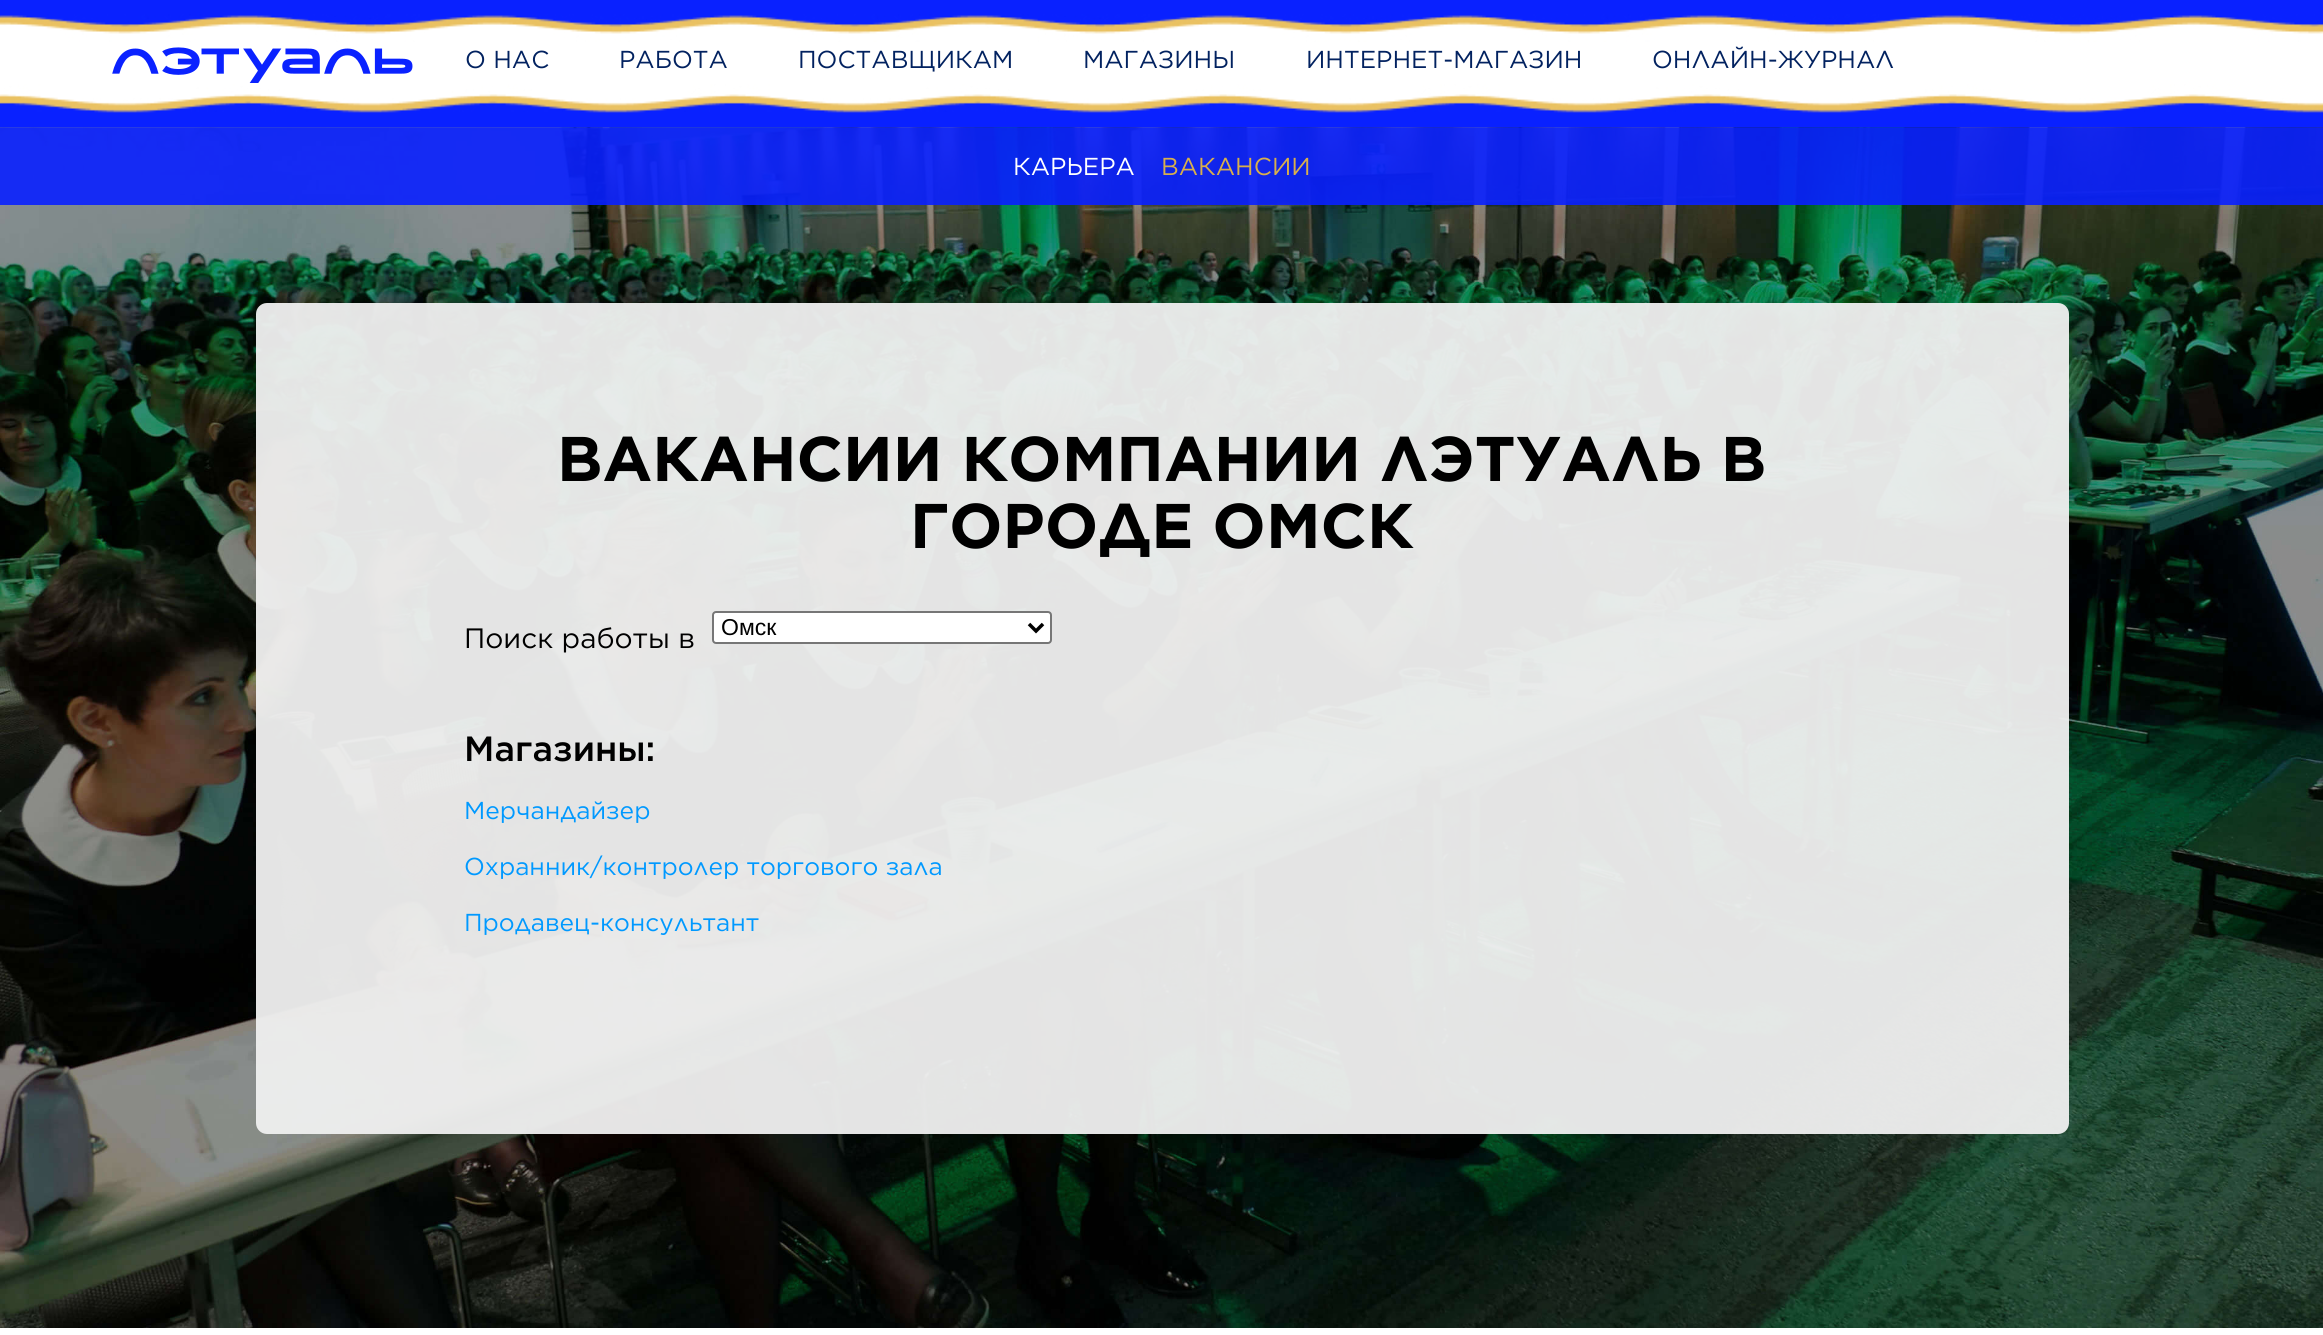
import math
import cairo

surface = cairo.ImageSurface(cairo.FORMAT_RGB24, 2323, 1335)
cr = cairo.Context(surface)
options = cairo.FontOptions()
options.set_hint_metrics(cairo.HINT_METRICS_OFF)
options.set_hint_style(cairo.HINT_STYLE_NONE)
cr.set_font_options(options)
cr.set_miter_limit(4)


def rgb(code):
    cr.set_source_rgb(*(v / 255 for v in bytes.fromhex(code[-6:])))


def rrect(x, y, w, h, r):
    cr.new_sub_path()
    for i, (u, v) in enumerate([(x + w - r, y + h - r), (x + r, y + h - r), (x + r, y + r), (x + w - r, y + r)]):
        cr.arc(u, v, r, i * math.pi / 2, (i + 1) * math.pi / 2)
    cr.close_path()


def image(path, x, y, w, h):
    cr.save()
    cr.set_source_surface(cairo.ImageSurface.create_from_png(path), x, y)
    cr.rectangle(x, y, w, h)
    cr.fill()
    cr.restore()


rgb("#ffffff")
cr.paint()
image("img/1.png", 0, 127, 2323, 1201)
image("img/2.png", 0, 0, 2323, 128)
image("img/3.png", 112, 47, 301, 36)
cr.set_source_rgba(0.035, 0.129, 1, 0.9)
cr.rectangle(0, 128, 2323, 77)
cr.fill()
cr.set_source_rgba(0.941, 0.941, 0.941, 0.95)
rrect(256, 303, 1813, 831, 11)
cr.fill()
rgb("#ffffff")
rrect(713, 612, 338, 31, 3)
cr.fill_preserve()
rgb("#767676")
cr.stroke()
cr.new_path()
cr.move_to(1029, 624)
cr.line_to(1036, 631)
cr.line_to(1043, 624)
rgb("#000000")
cr.set_line_width(3.5)
cr.stroke()
cr.select_font_face("Gotham")
cr.set_font_size(24.5)
rgb("#022260")
for x, y, s in [
    (465, 68, "О НАС"),
    (619, 68, "РАБОТА"),
    (798, 68, "ПОСТАВЩИКАМ"),
    (1083, 68, "МАГАЗИНЫ"),
    (1306, 68, "ИНТЕРНЕТ-МАГАЗИН"),
    (1652, 68, "ОНЛАЙН-ЖУРНАЛ"),
]:
    cr.move_to(x, y)
    cr.show_text(s)
rgb("#ffffff")
cr.move_to(1013, 175)
cr.show_text("КАРЬЕРА")
rgb("#d8af4c")
cr.move_to(1161, 175)
cr.show_text("ВАКАНСИИ")
cr.select_font_face("Gotham", cairo.FONT_SLANT_NORMAL, cairo.FONT_WEIGHT_BOLD)
cr.set_font_size(63)
rgb("#000000")
cr.move_to(557, 481)
cr.show_text("ВАКАНСИИ КОМПАНИИ ЛЭТУАЛЬ В")
cr.move_to(910, 548)
cr.show_text("ГОРОДЕ ОМСК")
cr.select_font_face("Gotham")
cr.set_font_size(28)
cr.move_to(464, 648)
cr.show_text("Поиск работы в")
cr.select_font_face("Liberation Sans")
cr.set_font_size(23)
cr.move_to(721, 635)
cr.show_text("Омск")
cr.select_font_face("Gotham Medium")
cr.set_font_size(35)
cr.move_to(464, 761)
cr.show_text("Магазины:")
cr.select_font_face("Gotham")
cr.set_font_size(24.5)
rgb("#0099ff")
for x, y, s in [
    (464, 819, "Мерчандайзер"),
    (464, 875, "Охранник/контролер торгового зала"),
    (464, 931, "Продавец-консультант"),
]:
    cr.move_to(x, y)
    cr.show_text(s)
surface.write_to_png("page.png")
